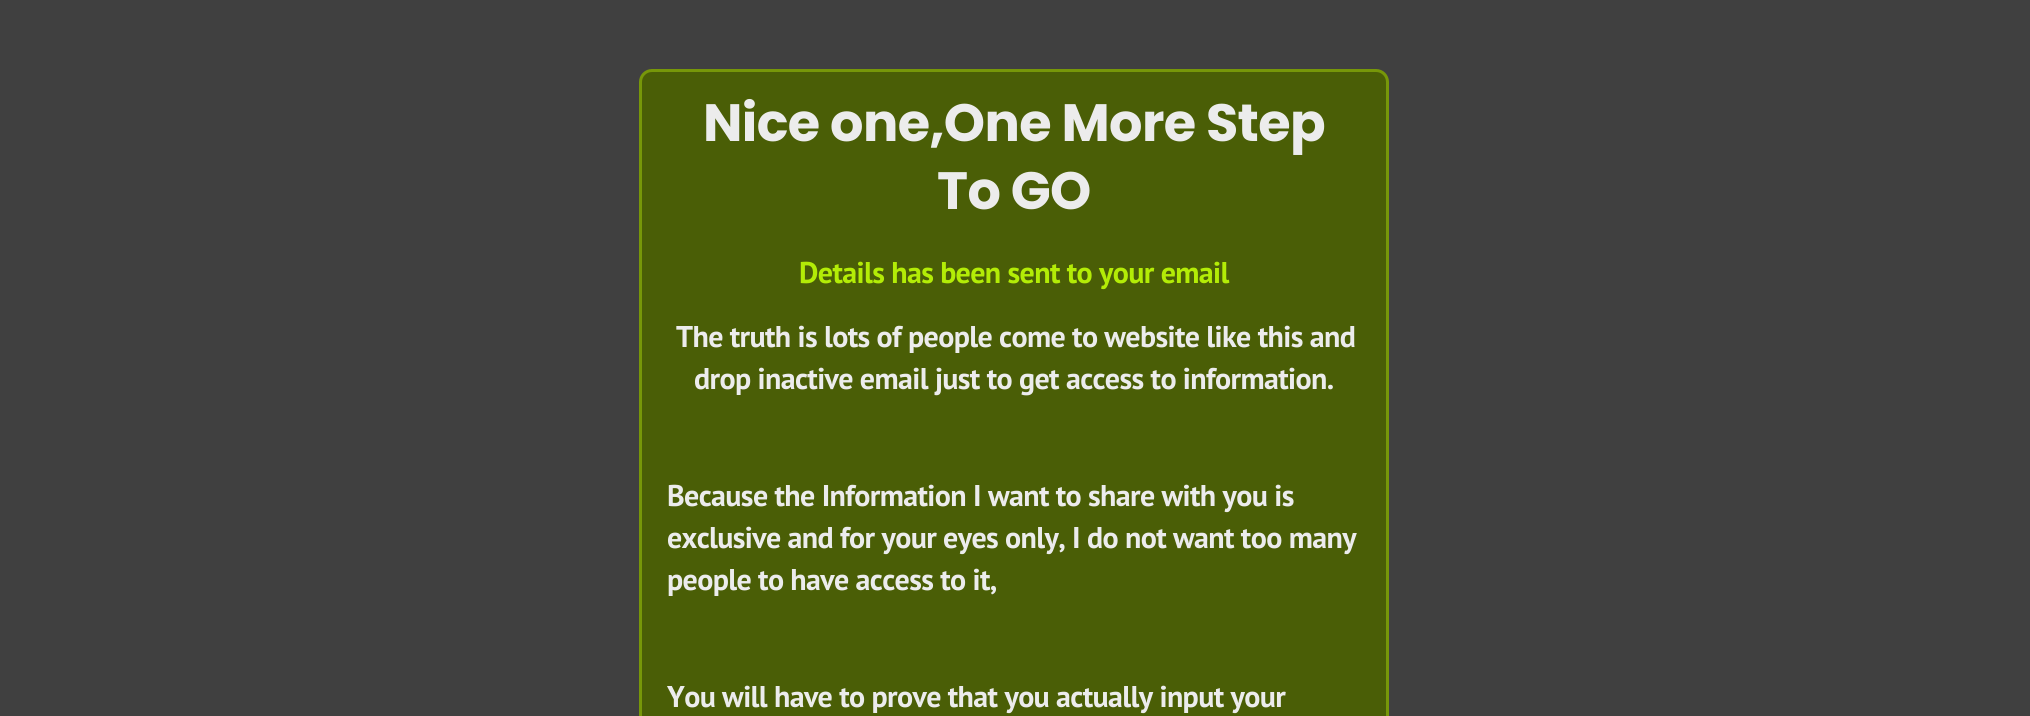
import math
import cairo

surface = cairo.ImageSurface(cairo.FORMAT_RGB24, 2030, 716)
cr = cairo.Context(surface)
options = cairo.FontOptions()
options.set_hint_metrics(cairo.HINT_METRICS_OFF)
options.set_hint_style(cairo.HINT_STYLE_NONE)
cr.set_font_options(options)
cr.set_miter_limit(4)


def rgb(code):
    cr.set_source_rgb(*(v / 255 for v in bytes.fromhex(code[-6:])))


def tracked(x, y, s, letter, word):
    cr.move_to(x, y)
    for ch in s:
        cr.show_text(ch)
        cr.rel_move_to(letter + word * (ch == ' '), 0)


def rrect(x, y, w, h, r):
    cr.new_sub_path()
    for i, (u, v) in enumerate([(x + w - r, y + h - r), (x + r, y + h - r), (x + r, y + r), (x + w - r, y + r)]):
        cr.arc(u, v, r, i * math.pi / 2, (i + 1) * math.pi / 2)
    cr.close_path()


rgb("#404040")
cr.paint()
rgb("#4a5e06")
rrect(640.5, 70.5, 747, 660, 11.5)
cr.fill_preserve()
rgb("#779709")
cr.set_line_width(3)
cr.stroke()
cr.select_font_face("Poppins", cairo.FONT_SLANT_NORMAL, cairo.FONT_WEIGHT_BOLD)
cr.set_font_size(52.5)
rgb("#ececec")
tracked(703, 141, "Nice one,One More Step", -0.62, 0)
tracked(937, 209, "To GO", -0.62, 0)
cr.select_font_face("PT Sans", cairo.FONT_SLANT_NORMAL, cairo.FONT_WEIGHT_BOLD)
cr.set_font_size(30)
rgb("#b3ec06")
tracked(799, 283, "Details has been sent to your email", -0.62, 0)
rgb("#ececec")
for x, y, s in [
    (676, 347, "The truth is lots of people come to website like this and"),
    (694, 389, "drop inactive email just to get access to information."),
    (667, 506, "Because the Information I want to share with you is"),
    (667, 548, "exclusive and for your eyes only, I do not want too many"),
    (667, 590, "people to have access to it,"),
    (667, 707, "You will have to prove that you actually input your"),
]:
    tracked(x, y, s, -0.62, 0)
surface.write_to_png("page.png")
